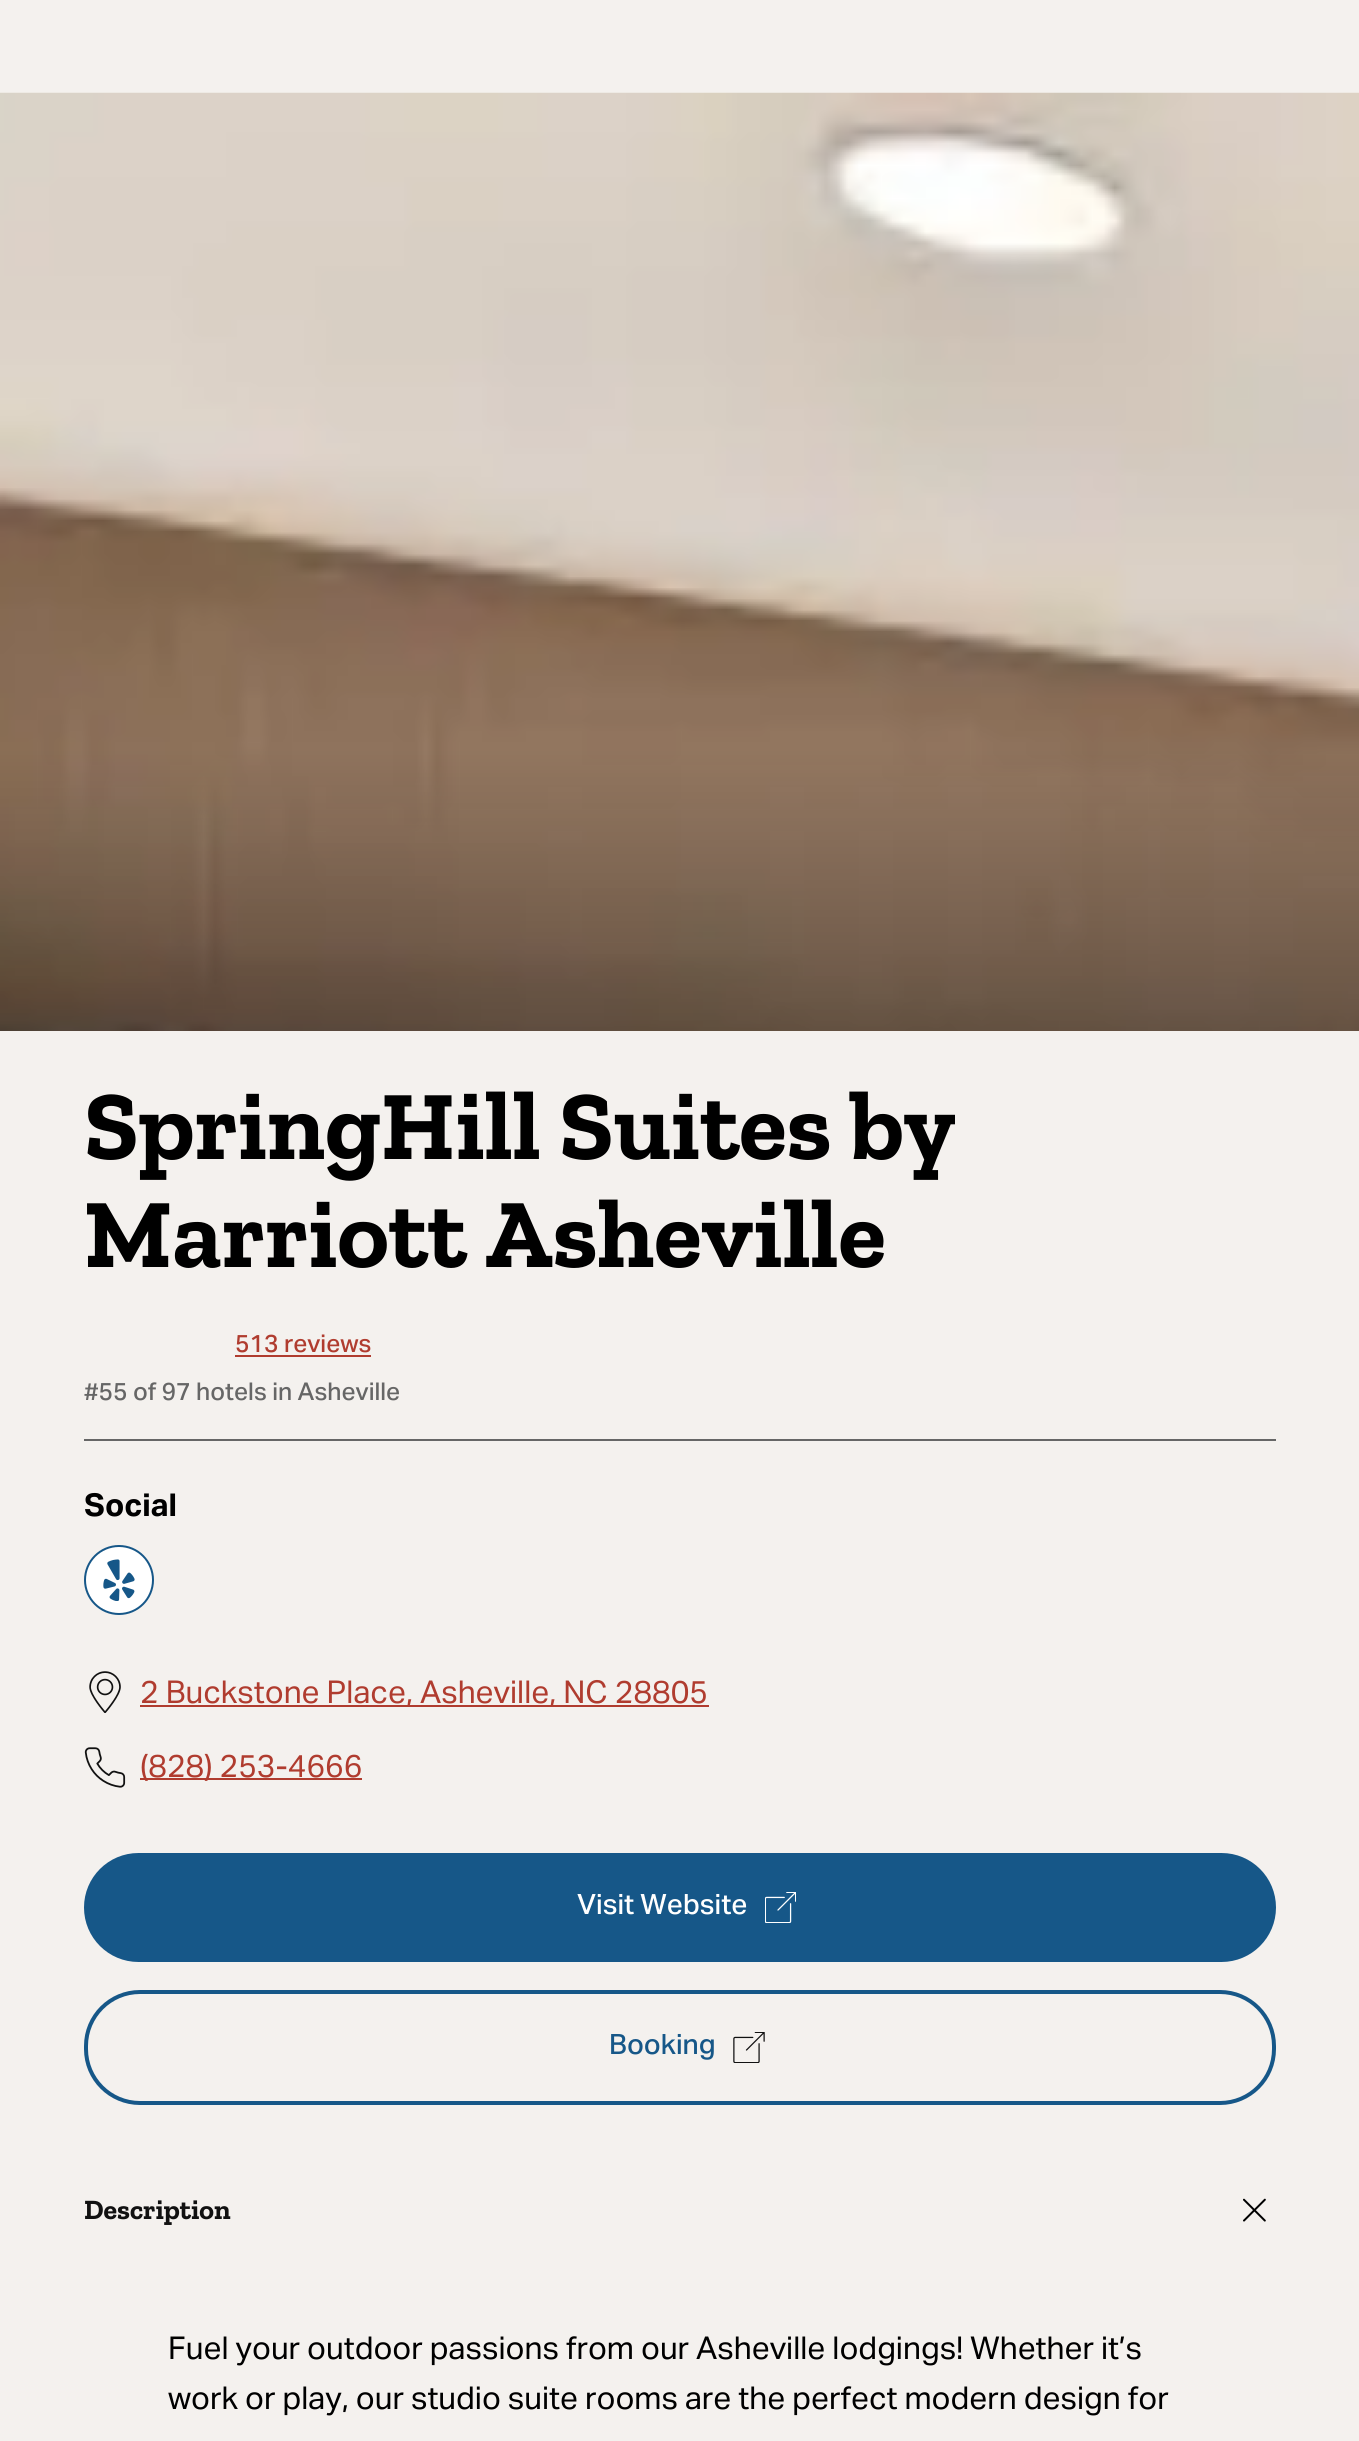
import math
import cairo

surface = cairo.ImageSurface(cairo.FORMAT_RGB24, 1359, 2441)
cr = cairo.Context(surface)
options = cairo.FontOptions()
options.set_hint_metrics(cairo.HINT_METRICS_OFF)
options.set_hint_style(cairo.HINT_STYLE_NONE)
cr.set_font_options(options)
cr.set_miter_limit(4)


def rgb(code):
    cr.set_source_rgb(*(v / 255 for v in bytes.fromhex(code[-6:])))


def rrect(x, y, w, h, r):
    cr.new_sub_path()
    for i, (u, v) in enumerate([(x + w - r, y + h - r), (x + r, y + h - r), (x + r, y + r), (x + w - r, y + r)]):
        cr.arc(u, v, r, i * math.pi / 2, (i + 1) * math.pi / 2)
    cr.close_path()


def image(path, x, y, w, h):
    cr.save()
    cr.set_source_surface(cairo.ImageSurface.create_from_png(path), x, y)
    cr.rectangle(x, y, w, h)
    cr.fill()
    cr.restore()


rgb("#f4f1ee")
cr.paint()
image("img/1.png", 0, 92, 1359, 939)
rgb("#666666")
cr.rectangle(84, 1439, 1192, 2)
cr.fill()
rgb("#b03c2f")
cr.rectangle(235, 1355, 136, 2)
cr.fill()
rgb("#ffffff")
cr.arc(119, 1580, 34, 0, 2 * math.pi)
cr.fill_preserve()
rgb("#165788")
cr.stroke()
image("img/2.png", 103, 1559, 32, 42)
image("img/3.png", 89, 1671, 32, 42)
rgb("#b03c2f")
cr.rectangle(140, 1705, 569, 2)
cr.fill()
image("img/4.png", 84, 1747, 42, 41)
cr.rectangle(140, 1778, 222, 2)
cr.fill()
rgb("#165788")
rrect(84, 1853, 1192, 109, 54.5)
cr.fill()
image("img/5.png", 765, 1892, 31, 31)
rrect(86, 1992, 1188, 111, 54)
cr.set_line_width(4)
cr.stroke()
image("img/6.png", 733, 2032, 32, 31)
image("img/7.png", 1243, 2198, 23, 24)
cr.select_font_face("Zilla Slab", cairo.FONT_SLANT_NORMAL, cairo.FONT_WEIGHT_BOLD)
cr.set_font_size(98)
rgb("#000000")
cr.move_to(84, 1159)
cr.show_text("SpringHill Suites by")
cr.move_to(84, 1267)
cr.show_text("Marriott Asheville")
cr.select_font_face("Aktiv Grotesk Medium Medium")
cr.set_font_size(24.5)
rgb("#b03c2f")
cr.move_to(235, 1352)
cr.show_text("513 reviews")
rgb("#666666")
cr.move_to(84, 1400)
cr.show_text("#55 of 97 hotels in Asheville")
cr.select_font_face("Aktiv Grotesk", cairo.FONT_SLANT_NORMAL, cairo.FONT_WEIGHT_BOLD)
cr.set_font_size(31.5)
rgb("#000000")
cr.move_to(84, 1516)
cr.show_text("Social")
cr.select_font_face("Aktiv Grotesk")
rgb("#b03c2f")
cr.move_to(140, 1703)
cr.show_text("2 Buckstone Place, Asheville, NC 28805")
cr.move_to(140, 1777)
cr.show_text("(828) 253-4666")
cr.select_font_face("Aktiv Grotesk Medium Medium")
cr.set_font_size(28)
rgb("#ffffff")
cr.move_to(577, 1914)
cr.show_text("Visit Website")
rgb("#165788")
cr.move_to(609, 2054)
cr.show_text("Booking")
cr.select_font_face("Zilla Slab", cairo.FONT_SLANT_NORMAL, cairo.FONT_WEIGHT_BOLD)
rgb("#111111")
cr.move_to(84, 2219)
cr.show_text("Description")
cr.select_font_face("Aktiv Grotesk")
cr.set_font_size(31.5)
rgb("#000000")
cr.move_to(168, 2359)
cr.show_text("Fuel your outdoor passions from our Asheville lodgings! Whether it’s")
cr.move_to(168, 2409)
cr.show_text("work or play, our studio suite rooms are the perfect modern design for")
surface.write_to_png("page.png")
